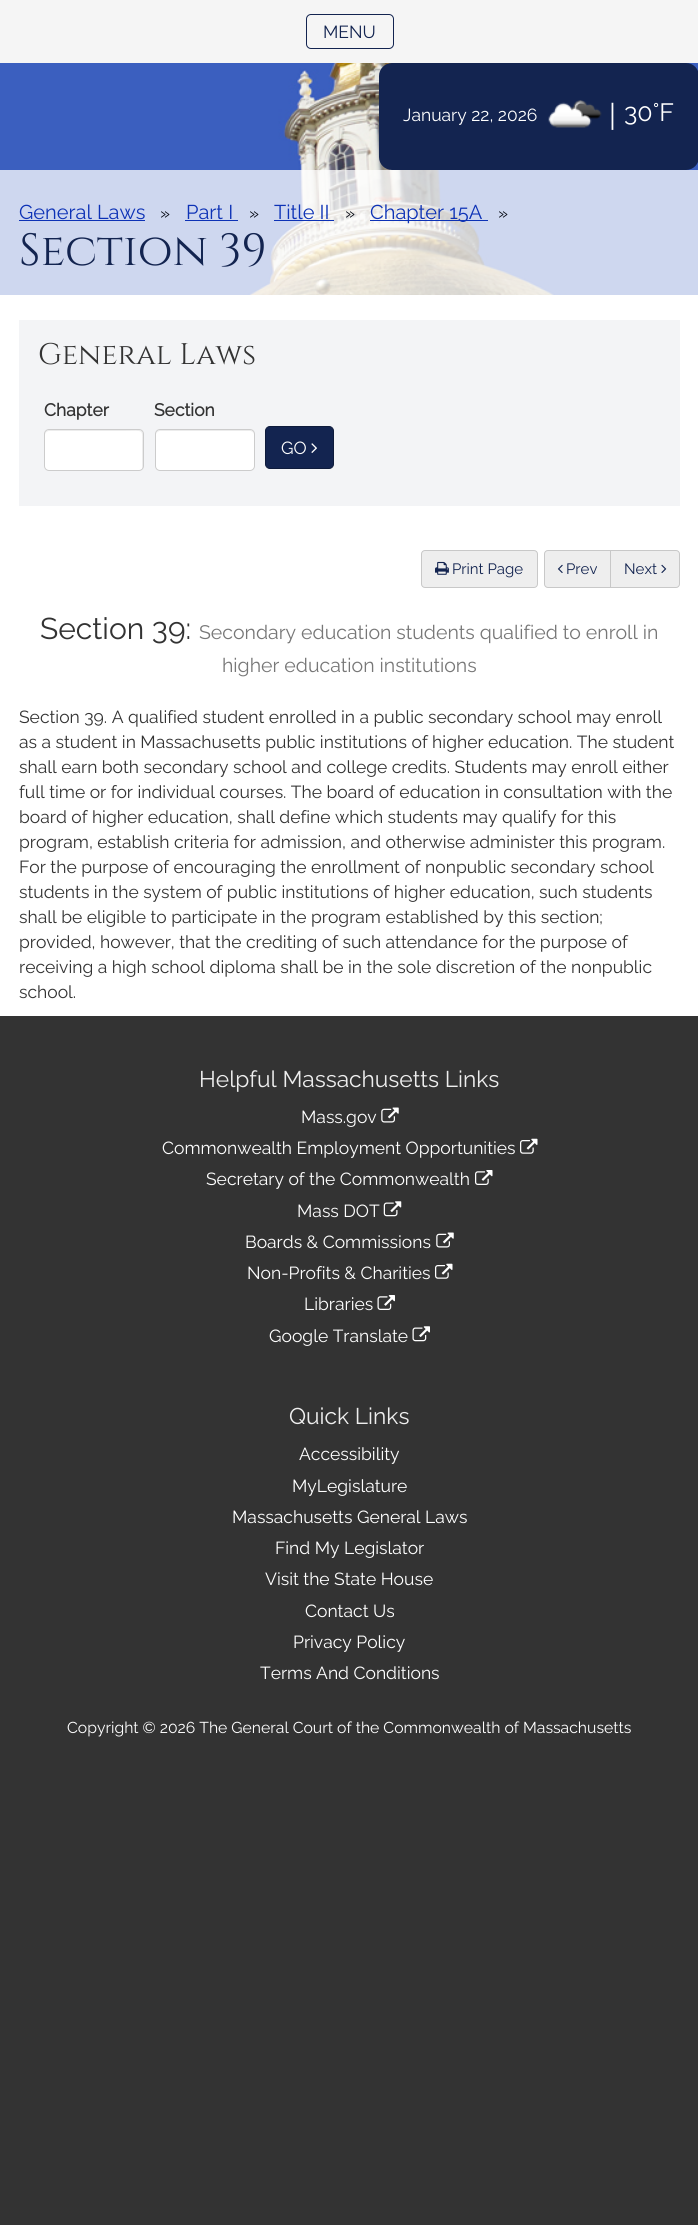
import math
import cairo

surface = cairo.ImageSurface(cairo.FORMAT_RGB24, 698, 2225)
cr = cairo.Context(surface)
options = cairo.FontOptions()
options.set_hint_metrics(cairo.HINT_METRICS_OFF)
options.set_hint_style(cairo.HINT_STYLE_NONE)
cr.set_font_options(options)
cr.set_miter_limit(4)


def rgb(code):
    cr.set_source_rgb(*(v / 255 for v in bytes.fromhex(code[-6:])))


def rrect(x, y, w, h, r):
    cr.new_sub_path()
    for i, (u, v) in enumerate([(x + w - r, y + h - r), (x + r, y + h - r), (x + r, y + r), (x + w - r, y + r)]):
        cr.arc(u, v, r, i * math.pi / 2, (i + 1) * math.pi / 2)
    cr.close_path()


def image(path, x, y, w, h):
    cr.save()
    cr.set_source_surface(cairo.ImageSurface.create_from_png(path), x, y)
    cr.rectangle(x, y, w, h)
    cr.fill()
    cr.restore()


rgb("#333333")
cr.paint()
image("img/1.png", 0, 63, 698, 232)
rgb("#f5f5f5")
cr.rectangle(0, 0, 698, 63)
cr.fill()
rrect(306.5, 14.5, 87, 34, 4.5)
rgb("#132450")
cr.set_line_width(1)
cr.stroke()
rrect(379, 63, 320, 107, 13)
cr.fill()
image("img/2.png", 548, 100, 54, 28)
cr.set_source_rgba(1, 1, 1, 0.75)
cr.rectangle(0, 170, 698, 125)
cr.fill()
rgb("#0d32b6")
cr.rectangle(19, 220, 126, 1)
cr.rectangle(185, 220, 53, 1)
cr.rectangle(274, 220, 60, 1)
cr.rectangle(370, 220, 118, 1)
cr.fill()
rgb("#ffffff")
cr.rectangle(0, 295, 698, 721)
cr.fill()
rgb("#f3f4f6")
cr.rectangle(19, 320, 661, 186)
cr.fill()
rgb("#ffffff")
rrect(44, 429, 100, 42, 5)
cr.fill()
rgb("#ececec")
cr.new_path()
cr.move_to(49, 431)
cr.line_to(124, 431)
cr.curve_to(145, 431, 142, 428, 142, 446)
cr.line_to(142, 469)
cr.curve_to(143, 468, 143, 467, 143, 466)
cr.line_to(143, 434)
cr.curve_to(143, 432, 141, 430, 139, 430)
cr.line_to(49, 430)
cr.curve_to(47, 430, 45, 432, 45, 434)
cr.line_to(45, 435)
cr.curve_to(45, 433, 47, 431, 49, 431)
cr.close_path()
cr.fill()
rrect(44.5, 429.5, 99, 41, 4.5)
rgb("#cccccc")
cr.stroke()
rgb("#ffffff")
rrect(155, 429, 100, 42, 5)
cr.fill()
rgb("#ececec")
cr.new_path()
cr.move_to(160, 431)
cr.line_to(250, 431)
cr.curve_to(252, 431, 254, 433, 254, 435)
cr.curve_to(254, 426, 239, 430, 235, 430)
cr.line_to(175, 430)
cr.curve_to(171, 430, 156, 426, 156, 435)
cr.curve_to(156, 433, 158, 431, 160, 431)
cr.close_path()
cr.fill()
rrect(155.5, 429.5, 99, 41, 4.5)
rgb("#cccccc")
cr.stroke()
rgb("#132450")
rrect(265.5, 426.5, 68, 42, 4.5)
cr.fill_preserve()
rgb("#0e1b3b")
cr.stroke()
image("img/3.png", 311, 443, 6, 10)
rgb("#eeeeee")
rrect(421.5, 550.5, 116, 37, 3.5)
cr.fill_preserve()
rgb("#c8c8c8")
cr.stroke()
image("img/4.png", 435, 561, 14, 14)
rgb("#eeeeee")
cr.new_path()
cr.move_to(548, 550.5)
cr.line_to(610.5, 550.5)
cr.line_to(610.5, 587.5)
cr.line_to(548, 587.5)
cr.curve_to(546, 587.5, 544.5, 586, 544.5, 584)
cr.line_to(544.5, 554)
cr.curve_to(544.5, 552, 546, 550.5, 548, 550.5)
cr.close_path()
cr.fill_preserve()
rgb("#c8c8c8")
cr.stroke()
image("img/5.png", 557, 564, 6, 9)
rgb("#eeeeee")
cr.new_path()
cr.move_to(610.5, 550.5)
cr.line_to(676, 550.5)
cr.curve_to(678, 550.5, 679.5, 552, 679.5, 554)
cr.line_to(679.5, 584)
cr.curve_to(679.5, 586, 678, 587.5, 676, 587.5)
cr.line_to(610.5, 587.5)
cr.close_path()
cr.fill_preserve()
rgb("#c8c8c8")
cr.stroke()
image("img/6.png", 661, 564, 6, 9)
image("img/7.png", 381, 1107, 18, 16)
image("img/8.png", 520, 1138, 18, 16)
image("img/9.png", 475, 1170, 18, 15)
image("img/10.png", 383, 1201, 19, 16)
image("img/7.png", 436, 1232, 18, 16)
image("img/8.png", 435, 1263, 18, 16)
image("img/11.png", 377, 1295, 18, 15)
image("img/12.png", 412, 1326, 18, 16)
cr.select_font_face("Raleway Thin")
cr.set_font_size(17.5)
rgb("#132450")
cr.move_to(323, 38)
cr.show_text("MENU")
rgb("#ffffff")
cr.move_to(403, 121)
cr.show_text("January 22, 2026")
cr.set_font_size(30)
cr.move_to(609, 126)
cr.show_text("|")
cr.set_font_size(25)
cr.move_to(624, 121)
cr.show_text("30°F")
cr.set_font_size(20)
rgb("#0d32b6")
cr.move_to(19, 219)
cr.show_text("General Laws")
cr.set_font_size(17.5)
rgb("#040812")
cr.move_to(160, 219)
cr.show_text("»")
cr.set_font_size(20)
rgb("#0d32b6")
cr.move_to(186, 219)
cr.show_text("Part I")
cr.set_font_size(17.5)
rgb("#040812")
cr.move_to(249, 219)
cr.show_text("»")
cr.set_font_size(20)
rgb("#0d32b6")
cr.move_to(274, 219)
cr.show_text("Title II")
cr.set_font_size(17.5)
rgb("#040812")
cr.move_to(345, 219)
cr.show_text("»")
cr.set_font_size(20)
rgb("#0d32b6")
cr.move_to(370, 219)
cr.show_text("Chapter 15A")
cr.set_font_size(17.5)
rgb("#040812")
cr.move_to(498, 219)
cr.show_text("»")
cr.select_font_face("Cinzel")
cr.set_font_size(45)
rgb("#132450")
cr.move_to(19, 265)
cr.show_text("Section 39")
cr.set_font_size(29.75)
rgb("#333333")
cr.move_to(38, 364)
cr.show_text("General Laws")
cr.select_font_face("Raleway", cairo.FONT_SLANT_NORMAL, cairo.FONT_WEIGHT_BOLD)
cr.set_font_size(17.5)
cr.move_to(44, 416)
cr.show_text("Chapter")
cr.move_to(154, 416)
cr.show_text("Section")
cr.select_font_face("Raleway Thin")
rgb("#ffffff")
cr.move_to(281, 454)
cr.show_text("GO")
cr.set_font_size(15)
rgb("#132450")
for x, y, s in [
    (452, 574, "Print Page"),
    (566, 574, "Prev"),
    (624, 574, "Next"),
]:
    cr.move_to(x, y)
    cr.show_text(s)
cr.set_font_size(30)
rgb("#333333")
cr.move_to(40, 639)
cr.show_text("Section 39:")
cr.set_font_size(19.5)
rgb("#777777")
cr.move_to(199, 639)
cr.show_text("Secondary education students qualified to enroll in")
cr.move_to(222, 672)
cr.show_text("higher education institutions")
cr.set_font_size(17.5)
rgb("#333333")
for x, y, s in [
    (19, 723, "Section 39. A qualified student enrolled in a public secondary school may enroll"),
    (19, 748, "as a student in Massachusetts public institutions of higher education. The student"),
    (19, 773, "shall earn both secondary school and college credits. Students may enroll either"),
    (19, 798, "full time or for individual courses. The board of education in consultation with the"),
    (19, 823, "board of higher education, shall define which students may qualify for this"),
    (19, 848, "program, establish criteria for admission, and otherwise administer this program."),
    (19, 873, "For the purpose of encouraging the enrollment of nonpublic secondary school"),
    (19, 898, "students in the system of public institutions of higher education, such students"),
    (19, 923, "shall be eligible to participate in the program established by this section;"),
    (19, 948, "provided, however, that the crediting of such attendance for the purpose of"),
    (19, 973, "receiving a high school diploma shall be in the sole discretion of the nonpublic"),
    (19, 998, "school."),
]:
    cr.move_to(x, y)
    cr.show_text(s)
cr.set_font_size(22.75)
rgb("#eeeeee")
cr.move_to(199, 1087)
cr.show_text("Helpful Massachusetts Links")
cr.set_font_size(17.5)
rgb("#ffffff")
for x, y, s in [
    (301, 1123, "Mass.gov"),
    (162, 1154, "Commonwealth Employment Opportunities"),
    (206, 1185, "Secretary of the Commonwealth"),
    (297, 1217, "Mass DOT"),
    (245, 1248, "Boards & Commissions"),
    (247, 1279, "Non-Profits & Charities"),
    (304, 1310, "Libraries"),
    (269, 1342, "Google Translate"),
]:
    cr.move_to(x, y)
    cr.show_text(s)
cr.set_font_size(22.75)
rgb("#eeeeee")
cr.move_to(289, 1424)
cr.show_text("Quick Links")
cr.set_font_size(17.5)
rgb("#ffffff")
for x, y, s in [
    (299, 1460, "Accessibility"),
    (292, 1492, "MyLegislature"),
    (232, 1523, "Massachusetts General Laws"),
    (275, 1554, "Find My Legislator"),
    (265, 1585, "Visit the State House"),
    (305, 1617, "Contact Us"),
    (293, 1648, "Privacy Policy"),
    (260, 1679, "Terms And Conditions"),
]:
    cr.move_to(x, y)
    cr.show_text(s)
cr.set_font_size(15.75)
cr.move_to(67, 1733)
cr.show_text("Copyright © 2026 The General Court of the Commonwealth of Massachusetts")
surface.write_to_png("page.png")
